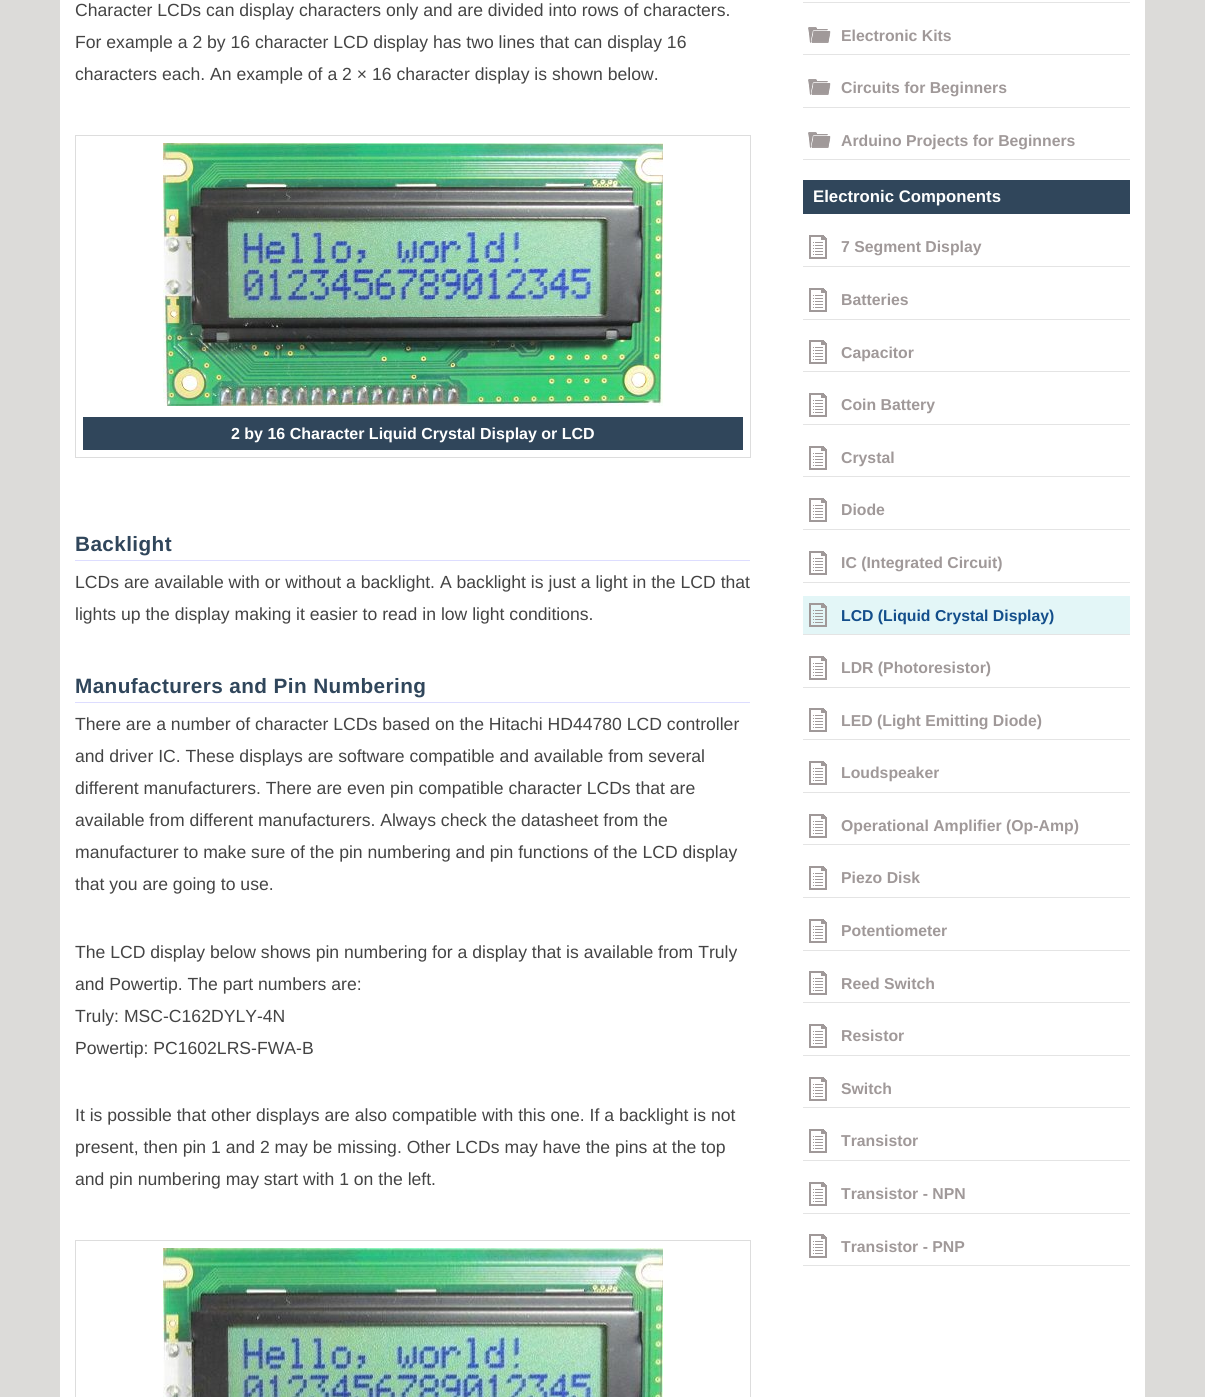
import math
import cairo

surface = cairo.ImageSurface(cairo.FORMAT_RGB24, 1205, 1397)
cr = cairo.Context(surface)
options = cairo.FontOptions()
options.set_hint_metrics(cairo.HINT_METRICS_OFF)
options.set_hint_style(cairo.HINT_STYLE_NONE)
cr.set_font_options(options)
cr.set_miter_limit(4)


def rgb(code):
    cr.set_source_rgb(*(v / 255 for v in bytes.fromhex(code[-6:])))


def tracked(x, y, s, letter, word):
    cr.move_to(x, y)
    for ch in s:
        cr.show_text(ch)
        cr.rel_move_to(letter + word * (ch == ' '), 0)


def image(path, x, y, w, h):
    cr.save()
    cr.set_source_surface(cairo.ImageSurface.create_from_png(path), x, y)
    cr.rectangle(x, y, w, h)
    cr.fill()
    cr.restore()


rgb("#dcdbd9")
cr.paint()
rgb("#ffffff")
cr.rectangle(60, 0, 1085, 1397)
cr.fill()
cr.rectangle(75.5, 135.5, 675, 322)
rgb("#dddddd")
cr.set_line_width(1)
cr.stroke()
image("img/1.png", 163, 143, 500, 263)
for x, y, w, h, color in [
    (83, 417, 660, 33, "#30465b"),
    (75, 560, 675, 1, "#ddddff"),
    (75, 702, 675, 1, "#ddddff"),
]:
    rgb(color)
    cr.rectangle(x, y, w, h)
    cr.fill()
cr.rectangle(75.5, 1240.5, 675, 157)
rgb("#dddddd")
cr.stroke()
image("img/2.png", 163, 1248, 500, 149)
rgb("#e4e4e4")
cr.rectangle(803, 2, 327, 1)
cr.fill()
cr.rectangle(803, 54, 327, 1)
cr.fill()
image("img/3.png", 808, 27, 23, 16)
cr.rectangle(803, 107, 327, 1)
cr.fill()
image("img/3.png", 808, 79, 23, 16)
cr.rectangle(803, 159, 327, 1)
cr.fill()
image("img/3.png", 808, 132, 23, 16)
rgb("#30465b")
cr.rectangle(803, 180, 327, 34)
cr.fill()
rgb("#e4e4e4")
cr.rectangle(803, 266, 327, 1)
cr.fill()
image("img/4.png", 809, 235, 18, 24)
cr.rectangle(803, 319, 327, 1)
cr.fill()
image("img/4.png", 809, 288, 18, 24)
cr.rectangle(803, 371, 327, 1)
cr.fill()
image("img/4.png", 809, 340, 18, 24)
cr.rectangle(803, 424, 327, 1)
cr.fill()
image("img/4.png", 809, 393, 18, 24)
cr.rectangle(803, 476, 327, 1)
cr.fill()
image("img/4.png", 809, 446, 18, 24)
cr.rectangle(803, 529, 327, 1)
cr.fill()
image("img/4.png", 809, 498, 18, 24)
cr.rectangle(803, 582, 327, 1)
cr.fill()
image("img/4.png", 809, 551, 18, 24)
cr.rectangle(803, 634, 327, 1)
cr.fill()
rgb("#e3f6f7")
cr.rectangle(803, 596, 327, 38)
cr.fill()
image("img/5.png", 809, 603, 18, 24)
rgb("#e4e4e4")
cr.rectangle(803, 687, 327, 1)
cr.fill()
image("img/4.png", 809, 656, 18, 24)
cr.rectangle(803, 739, 327, 1)
cr.fill()
image("img/4.png", 809, 708, 18, 24)
cr.rectangle(803, 792, 327, 1)
cr.fill()
image("img/4.png", 809, 761, 18, 24)
cr.rectangle(803, 844, 327, 1)
cr.fill()
image("img/4.png", 809, 814, 18, 24)
cr.rectangle(803, 897, 327, 1)
cr.fill()
image("img/4.png", 809, 866, 18, 24)
cr.rectangle(803, 950, 327, 1)
cr.fill()
image("img/4.png", 809, 919, 18, 24)
cr.rectangle(803, 1002, 327, 1)
cr.fill()
image("img/4.png", 809, 971, 18, 24)
cr.rectangle(803, 1055, 327, 1)
cr.fill()
image("img/4.png", 809, 1024, 18, 24)
cr.rectangle(803, 1107, 327, 1)
cr.fill()
image("img/4.png", 809, 1077, 18, 24)
cr.rectangle(803, 1160, 327, 1)
cr.fill()
image("img/4.png", 809, 1129, 18, 24)
cr.rectangle(803, 1213, 327, 1)
cr.fill()
image("img/4.png", 809, 1182, 18, 24)
cr.rectangle(803, 1265, 327, 1)
cr.fill()
image("img/4.png", 809, 1234, 18, 24)
cr.select_font_face("Liberation Sans")
cr.set_font_size(17.6)
rgb("#444444")
for x, y, s in [
    (75, 16, "Character LCDs can display characters only and are divided into rows of characters."),
    (75, 48, "For example a 2 by 16 character LCD display has two lines that can display 16"),
    (75, 80, "characters each. An example of a 2 × 16 character display is shown below."),
]:
    cr.move_to(x, y)
    cr.show_text(s)
cr.select_font_face("Liberation Sans", cairo.FONT_SLANT_NORMAL, cairo.FONT_WEIGHT_BOLD)
cr.set_font_size(16)
rgb("#ffffff")
cr.move_to(231, 439)
cr.show_text("2 by 16 Character Liquid Crystal Display or LCD")
cr.set_font_size(20.75)
rgb("#30465b")
tracked(75, 551, "Backlight", 0.4, 0)
cr.select_font_face("Liberation Sans")
cr.set_font_size(17.6)
rgb("#444444")
cr.move_to(75, 588)
cr.show_text("LCDs are available with or without a backlight. A backlight is just a light in the LCD that")
cr.move_to(75, 620)
cr.show_text("lights up the display making it easier to read in low light conditions.")
cr.select_font_face("Liberation Sans", cairo.FONT_SLANT_NORMAL, cairo.FONT_WEIGHT_BOLD)
cr.set_font_size(20.75)
rgb("#30465b")
tracked(75, 693, "Manufacturers and Pin Numbering", 0.4, 0)
cr.select_font_face("Liberation Sans")
cr.set_font_size(17.6)
rgb("#444444")
for x, y, s in [
    (75, 730, "There are a number of character LCDs based on the Hitachi HD44780 LCD controller"),
    (75, 762, "and driver IC. These displays are software compatible and available from several"),
    (75, 794, "different manufacturers. There are even pin compatible character LCDs that are"),
    (75, 826, "available from different manufacturers. Always check the datasheet from the"),
    (75, 858, "manufacturer to make sure of the pin numbering and pin functions of the LCD display"),
    (75, 890, "that you are going to use."),
    (75, 958, "The LCD display below shows pin numbering for a display that is available from Truly"),
    (75, 990, "and Powertip. The part numbers are:"),
    (75, 1022, "Truly: MSC-C162DYLY-4N"),
    (75, 1054, "Powertip: PC1602LRS-FWA-B"),
    (75, 1121, "It is possible that other displays are also compatible with this one. If a backlight is not"),
    (75, 1153, "present, then pin 1 and 2 may be missing. Other LCDs may have the pins at the top"),
    (75, 1185, "and pin numbering may start with 1 on the left."),
]:
    cr.move_to(x, y)
    cr.show_text(s)
cr.select_font_face("Liberation Sans", cairo.FONT_SLANT_NORMAL, cairo.FONT_WEIGHT_BOLD)
cr.set_font_size(15.8)
rgb("#a09999")
for x, y, s in [
    (841, 41, "Electronic Kits"),
    (841, 93, "Circuits for Beginners"),
    (841, 146, "Arduino Projects for Beginners"),
]:
    cr.move_to(x, y)
    cr.show_text(s)
cr.set_font_size(16.75)
rgb("#ffffff")
cr.move_to(813, 202)
cr.show_text("Electronic Components")
cr.set_font_size(15.8)
rgb("#a09999")
for x, y, s in [
    (841, 252, "7 Segment Display"),
    (841, 305, "Batteries"),
    (841, 358, "Capacitor"),
    (841, 410, "Coin Battery"),
    (841, 463, "Crystal"),
    (841, 515, "Diode"),
    (841, 568, "IC (Integrated Circuit)"),
]:
    cr.move_to(x, y)
    cr.show_text(s)
rgb("#134e8b")
cr.move_to(841, 621)
cr.show_text("LCD (Liquid Crystal Display)")
rgb("#a09999")
for x, y, s in [
    (841, 673, "LDR (Photoresistor)"),
    (841, 726, "LED (Light Emitting Diode)"),
    (841, 778, "Loudspeaker"),
    (841, 831, "Operational Amplifier (Op-Amp)"),
    (841, 883, "Piezo Disk"),
    (841, 936, "Potentiometer"),
    (841, 989, "Reed Switch"),
    (841, 1041, "Resistor"),
    (841, 1094, "Switch"),
    (841, 1146, "Transistor"),
    (841, 1199, "Transistor - NPN"),
    (841, 1252, "Transistor - PNP"),
]:
    cr.move_to(x, y)
    cr.show_text(s)
surface.write_to_png("page.png")
